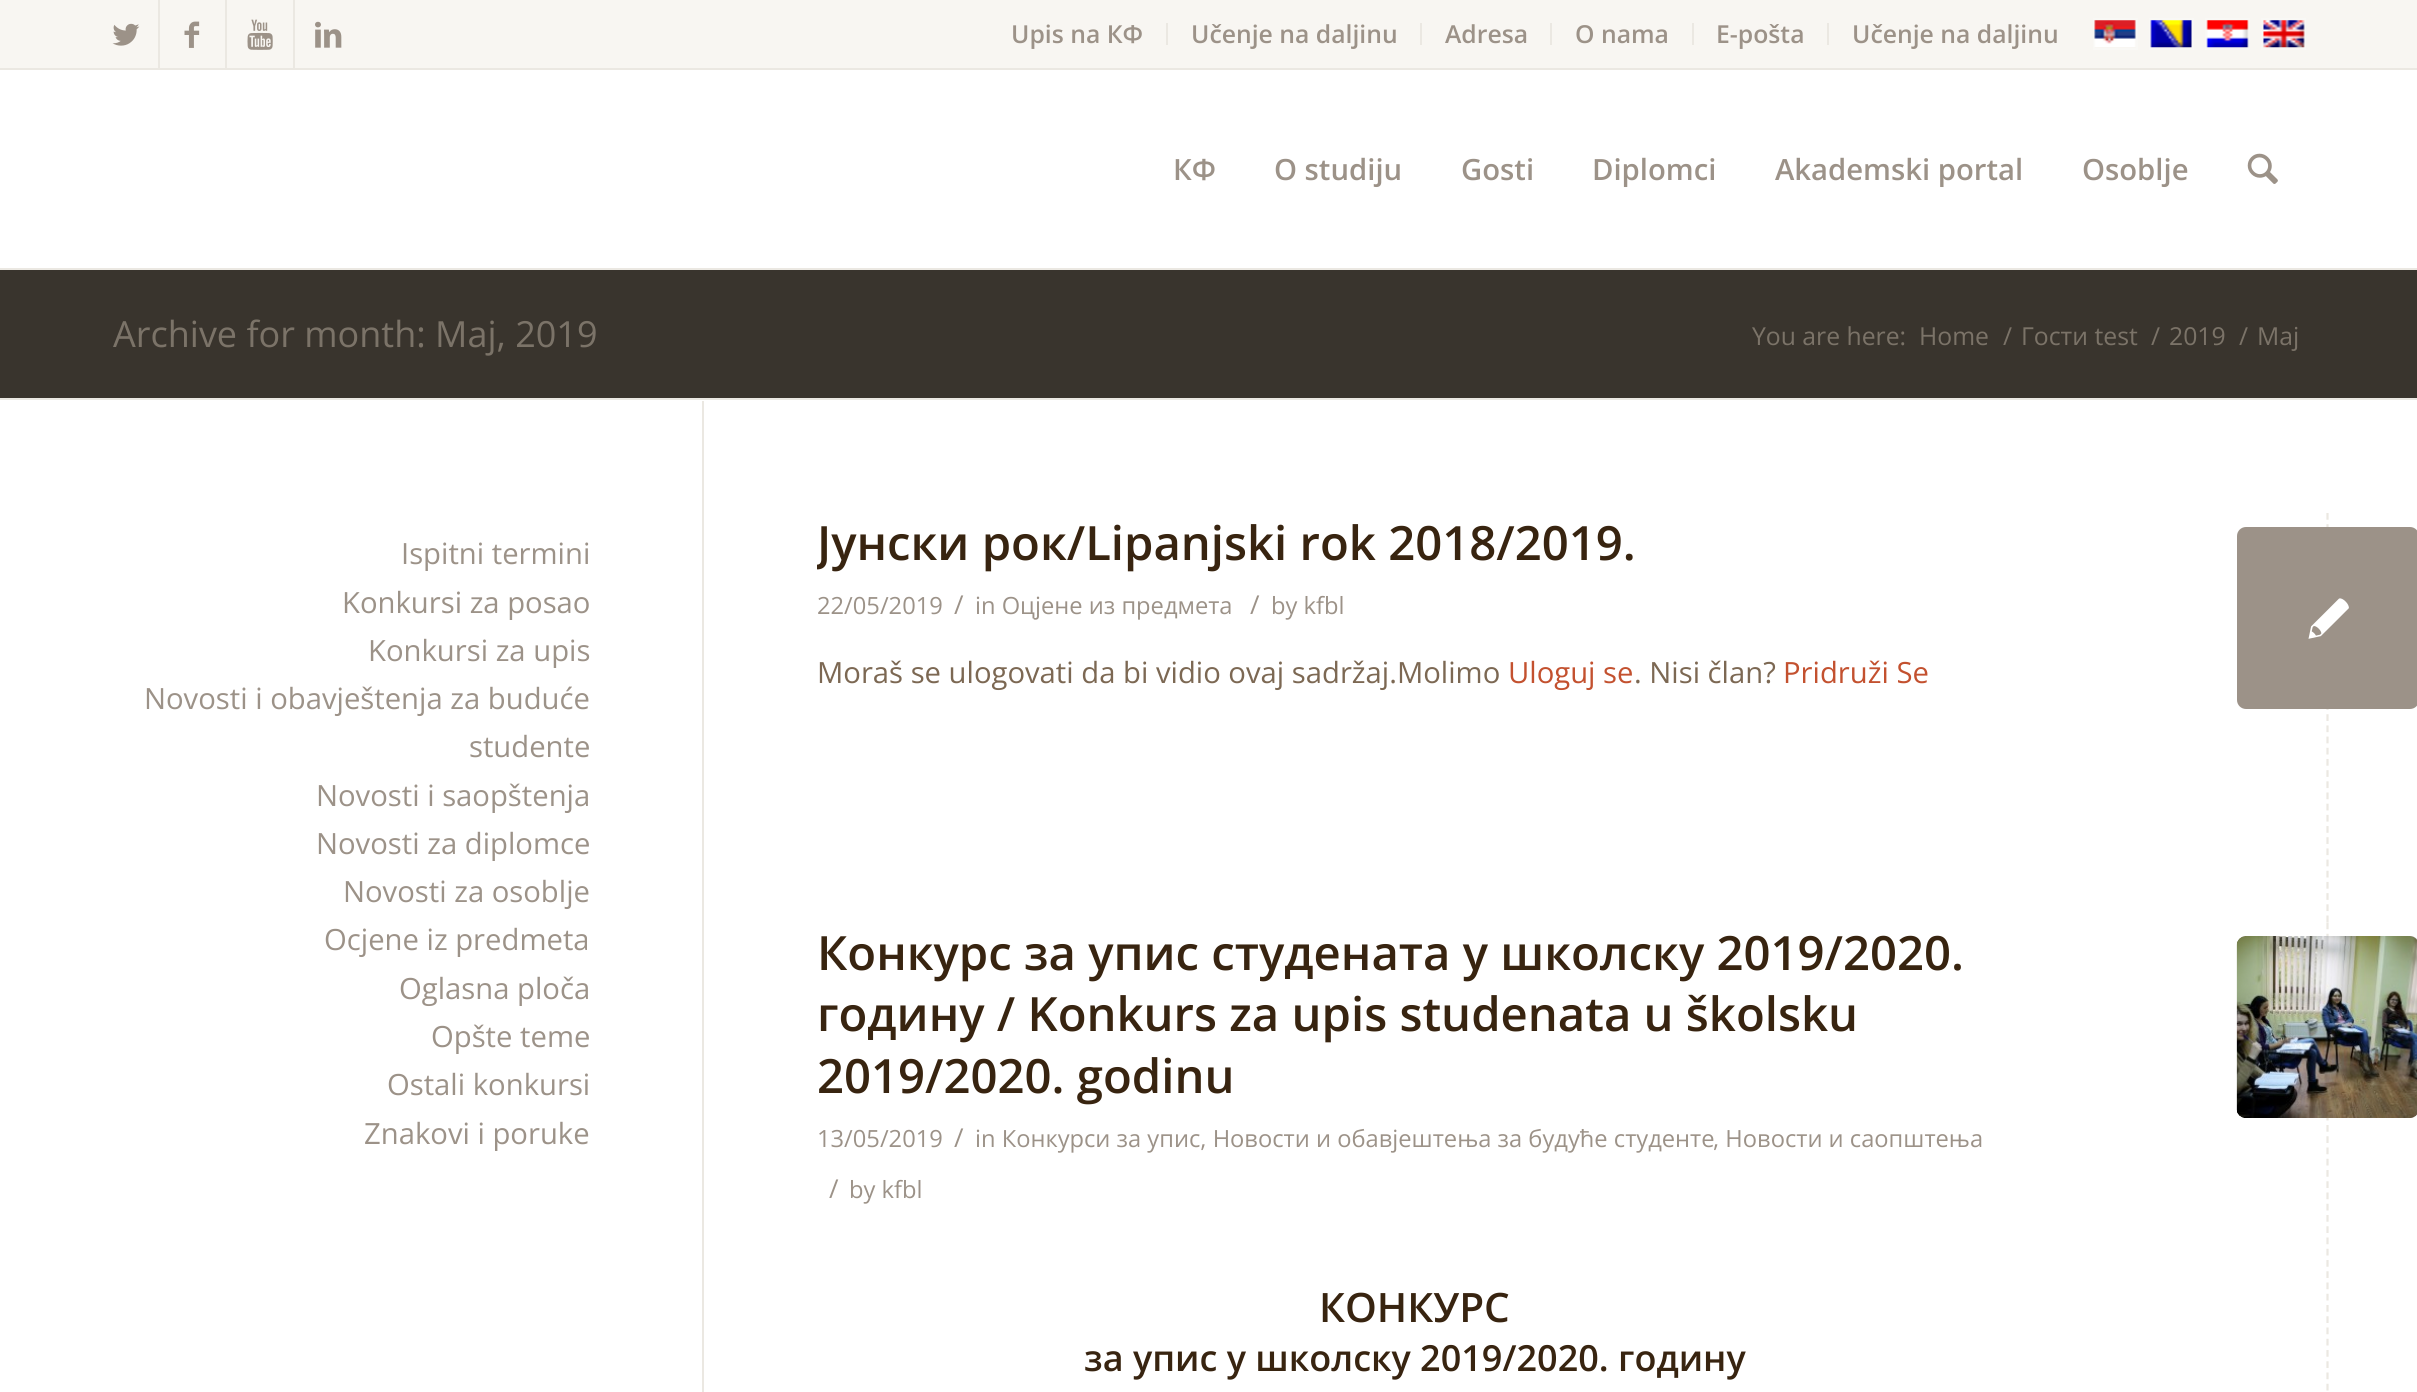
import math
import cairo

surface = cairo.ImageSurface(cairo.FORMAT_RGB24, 2417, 1392)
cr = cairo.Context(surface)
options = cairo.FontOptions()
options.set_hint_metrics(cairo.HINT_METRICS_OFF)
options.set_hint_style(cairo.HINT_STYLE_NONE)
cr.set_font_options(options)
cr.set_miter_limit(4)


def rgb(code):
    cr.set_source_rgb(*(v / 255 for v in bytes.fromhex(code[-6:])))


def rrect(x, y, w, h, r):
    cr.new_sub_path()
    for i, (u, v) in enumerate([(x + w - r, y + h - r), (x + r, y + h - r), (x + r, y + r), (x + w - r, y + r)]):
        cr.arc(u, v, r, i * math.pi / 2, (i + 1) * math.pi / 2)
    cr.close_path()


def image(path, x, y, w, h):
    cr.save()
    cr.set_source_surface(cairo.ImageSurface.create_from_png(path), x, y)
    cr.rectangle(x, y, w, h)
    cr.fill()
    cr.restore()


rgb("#ffffff")
cr.paint()
for x, y, w, h, color in [
    (0, 0, 2417, 68, "#f8f6f2"),
    (0, 68, 2417, 2, "#ebe8e2"),
    (158, 0, 2, 68, "#ebe8e2"),
]:
    rgb(color)
    cr.rectangle(x, y, w, h)
    cr.fill()
image("img/1.png", 112, 23, 28, 23)
cr.rectangle(225, 0, 2, 68)
cr.fill()
image("img/2.png", 184, 21, 16, 27)
cr.rectangle(293, 0, 2, 68)
cr.fill()
image("img/3.png", 247, 19, 26, 31)
image("img/4.png", 315, 21, 27, 27)
for x, y, w, h, color in [
    (1166, 23, 2, 22, "#ebe8e2"),
    (1420, 23, 2, 22, "#ebe8e2"),
    (1550, 23, 2, 22, "#ebe8e2"),
    (1692, 23, 2, 22, "#ebe8e2"),
    (1827, 23, 2, 22, "#ebe8e2"),
]:
    rgb(color)
    cr.rectangle(x, y, w, h)
    cr.fill()
cr.rectangle(2094, 19, 43, 30)
rgb("#f9f8f5")
cr.stroke()
image("img/5.png", 2094, 20, 42, 27)
cr.rectangle(2150, 19, 43, 30)
cr.stroke()
image("img/6.png", 2150, 20, 42, 28)
cr.rectangle(2206, 19, 43, 30)
cr.stroke()
image("img/7.png", 2206, 20, 43, 28)
cr.rectangle(2262, 19, 43, 30)
cr.stroke()
image("img/8.png", 2263, 20, 42, 28)
rgb("#ebe8e2")
cr.rectangle(0, 268, 2417, 2)
cr.fill()
image("img/9.png", 2247, 153, 31, 31)
for x, y, w, h, color in [
    (0, 270, 2417, 128, "#39342d"),
    (0, 398, 2417, 2, "#ebe8e2"),
    (702, 401, 2, 991, "#ebe8e2"),
]:
    rgb(color)
    cr.rectangle(x, y, w, h)
    cr.fill()
cr.new_path()
cr.move_to(2327.5, 513)
cr.line_to(2327.5, 922.5)
cr.set_line_width(2.2)
cr.set_dash([6.75, 4.43])
cr.stroke()
rgb("#9c9288")
rrect(2237, 527, 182, 182, 9)
cr.fill()
image("img/10.png", 2308, 598, 41, 41)
cr.new_path()
cr.move_to(2327.5, 922.5)
cr.line_to(2327.5, 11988)
rgb("#ebe8e2")
cr.set_dash([6.75, 4.5])
cr.stroke()
rgb("#9c9288")
rrect(2237, 936, 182, 182, 9)
cr.fill()
image("img/11.png", 2236, 936, 181, 182)
cr.select_font_face("Open Sans SemiBold")
cr.set_font_size(24.75)
for x, y, s in [
    (1011, 43, "Upis na КФ"),
    (1191, 43, "Učenje na daljinu"),
    (1445, 43, "Adresa"),
    (1575, 43, "O nama"),
    (1716, 43, "Е-pošta"),
    (1852, 43, "Učenje na daljinu"),
]:
    cr.move_to(x, y)
    cr.show_text(s)
cr.set_font_size(29.25)
for x, y, s in [
    (1173, 180, "КФ"),
    (1274, 180, "O studiju"),
    (1461, 180, "Gosti"),
    (1592, 180, "Diplomci"),
    (1775, 180, "Akademski portal"),
    (2082, 180, "Osoblje"),
]:
    cr.move_to(x, y)
    cr.show_text(s)
cr.select_font_face("Open Sans")
cr.set_font_size(36)
rgb("#7b7368")
cr.move_to(113, 347)
cr.show_text("Archive for month: Maj, 2019")
cr.set_font_size(24.75)
for x, y, s in [
    (1752, 345, "You are here:"),
    (1919, 345, "Home"),
    (2003, 345, "/"),
    (2021, 345, "Гости test"),
    (2151, 345, "/"),
    (2169, 345, "2019"),
    (2239, 345, "/"),
    (2257, 345, "Maj"),
]:
    cr.move_to(x, y)
    cr.show_text(s)
cr.set_font_size(29.25)
rgb("#9c9288")
for x, y, s in [
    (401, 564, "Ispitni termini"),
    (342, 613, "Konkursi za posao"),
    (368, 661, "Konkursi za upis"),
    (144, 709, "Novosti i obavještenja za buduće"),
    (469, 757, "studente"),
    (316, 806, "Novosti i saopštenja"),
    (316, 854, "Novosti za diplomce"),
    (343, 902, "Novosti za osoblje"),
    (324, 950, "Ocjene iz predmeta"),
    (399, 999, "Oglasna ploča"),
    (431, 1047, "Opšte teme"),
    (387, 1095, "Ostali konkursi"),
    (364, 1144, "Znakovi i poruke"),
]:
    cr.move_to(x, y)
    cr.show_text(s)
cr.save()
cr.rectangle(817, 513, 1307, 410)
cr.clip()
cr.select_font_face("Open Sans SemiBold")
cr.set_font_size(47.25)
rgb("#382410")
cr.move_to(817, 560)
cr.show_text("Јунски рок/Lipanjski rok 2018/2019.")
cr.restore()
cr.set_font_size(23.7)
cr.move_to(817, 614)
cr.show_text("22/05/2019")
cr.set_font_size(26)
cr.move_to(954, 614)
cr.show_text("/")
cr.set_font_size(23.7)
cr.move_to(975, 614)
cr.show_text("in Оцјене из предмета")
cr.set_font_size(26)
cr.move_to(1250, 614)
cr.show_text("/")
cr.set_font_size(23.7)
cr.move_to(1271, 614)
cr.show_text("by kfbl")
cr.set_font_size(29.25)
rgb("#7c6853")
cr.move_to(817, 683)
cr.show_text("Moraš se ulogovati da bi vidio ovaj sadržaj.Molimo")
rgb("#c3512f")
cr.move_to(1508, 683)
cr.show_text("Uloguj se")
rgb("#7c6853")
cr.move_to(1634, 683)
cr.show_text(". Nisi član?")
rgb("#c3512f")
cr.move_to(1783, 683)
cr.show_text("Pridruži Se")
cr.select_font_face("Open Sans SemiBold")
cr.set_font_size(47.25)
rgb("#382410")
for x, y, s in [
    (817, 970, "Конкурс за упис студената у школску 2019/2020."),
    (817, 1031, "годину / Konkurs za upis studenata u školsku"),
    (817, 1093, "2019/2020. godinu"),
]:
    cr.move_to(x, y)
    cr.show_text(s)
cr.select_font_face("Open Sans")
cr.set_font_size(23.7)
rgb("#9c9288")
cr.move_to(817, 1147)
cr.show_text("13/05/2019")
cr.set_font_size(26)
cr.move_to(954, 1147)
cr.show_text("/")
cr.set_font_size(23.7)
cr.move_to(975, 1147)
cr.show_text("in Конкурси за упис, Новости и обавјештења за будуће студенте")
cr.move_to(1713, 1147)
cr.show_text(", Новости и саопштења")
cr.set_font_size(26)
cr.move_to(829, 1198)
cr.show_text("/")
cr.set_font_size(23.7)
cr.move_to(849, 1198)
cr.show_text("by kfbl")
cr.select_font_face("Open Sans SemiBold")
cr.set_font_size(40.5)
rgb("#382410")
cr.move_to(1319, 1322)
cr.show_text("КОНКУРС")
cr.set_font_size(36)
cr.move_to(1084, 1371)
cr.show_text("за упис у школску 2019/2020. годину")
surface.write_to_png("page.png")
